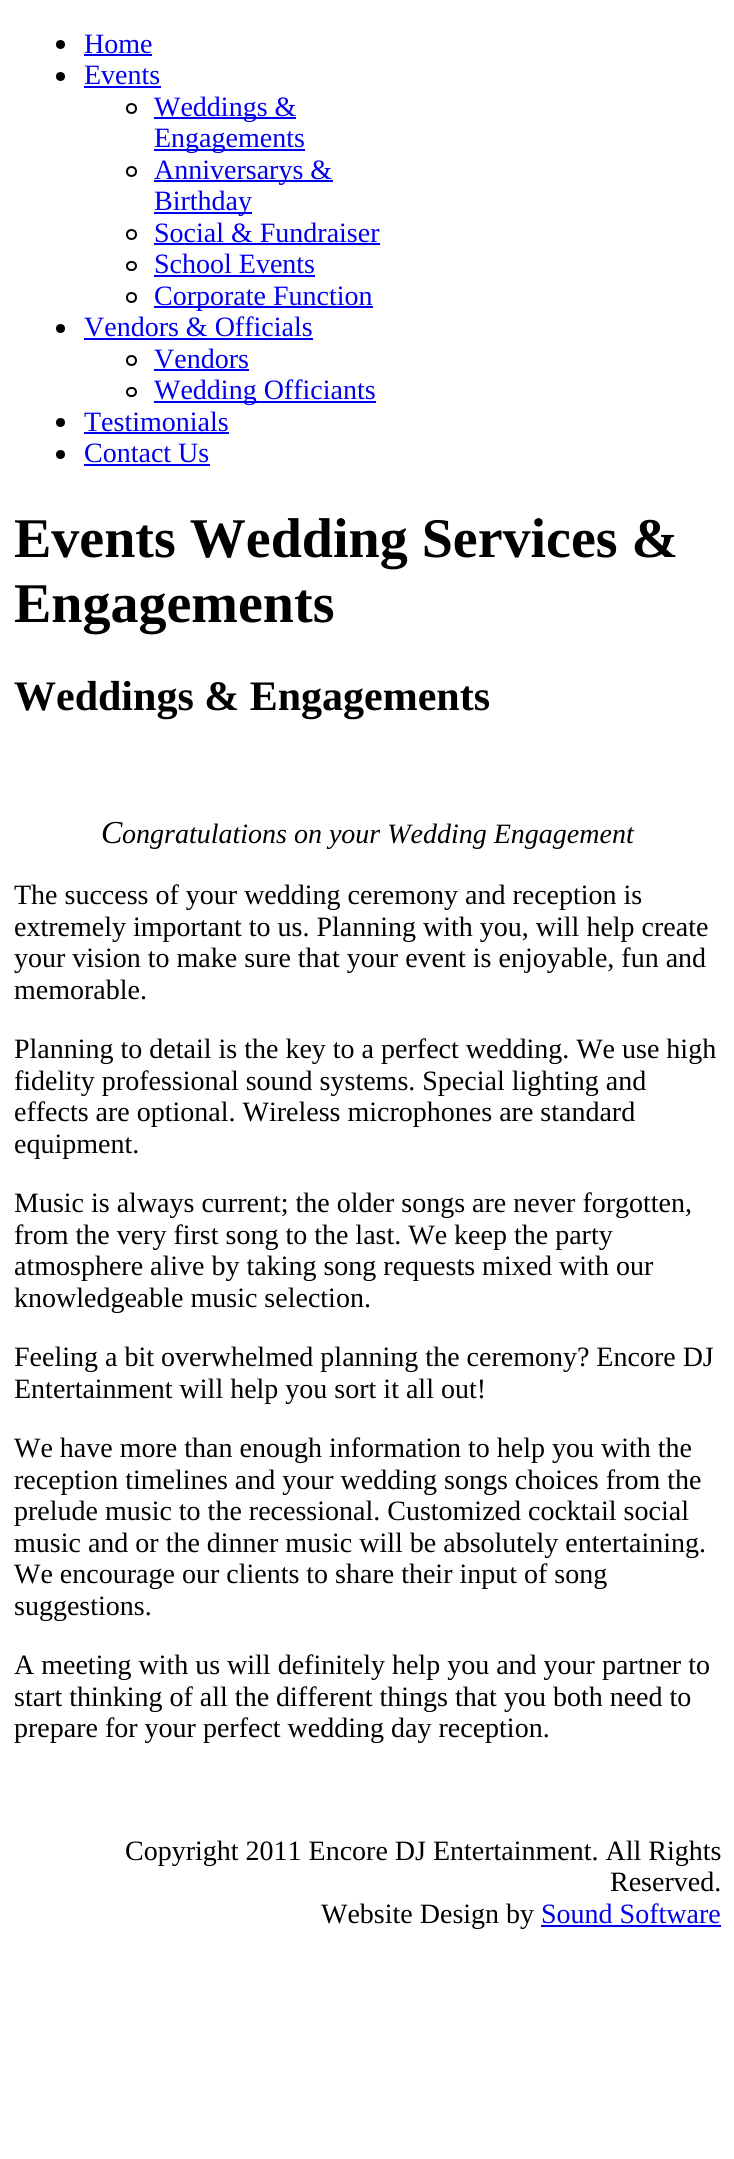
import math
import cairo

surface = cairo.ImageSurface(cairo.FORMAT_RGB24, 734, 2159)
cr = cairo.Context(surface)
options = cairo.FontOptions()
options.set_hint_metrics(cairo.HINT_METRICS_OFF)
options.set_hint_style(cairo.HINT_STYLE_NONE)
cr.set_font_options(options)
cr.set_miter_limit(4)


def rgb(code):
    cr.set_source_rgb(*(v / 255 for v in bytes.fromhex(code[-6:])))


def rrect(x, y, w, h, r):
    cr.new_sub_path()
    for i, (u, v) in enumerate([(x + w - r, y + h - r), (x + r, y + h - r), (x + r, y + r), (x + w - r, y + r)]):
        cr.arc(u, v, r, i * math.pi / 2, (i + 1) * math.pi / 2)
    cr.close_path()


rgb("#ffffff")
cr.paint()
rgb("#000000")
cr.arc(60.5, 44.5, 4.5, 0, 2 * math.pi)
cr.fill()
rgb("#0000ee")
cr.rectangle(84, 54, 68, 2)
cr.fill()
rgb("#000000")
cr.arc(60.5, 76.5, 4.5, 0, 2 * math.pi)
cr.fill()
rgb("#0000ee")
cr.rectangle(84, 86, 77, 2)
cr.fill()
cr.arc(131.5, 108.5, 4.5, 0, 2 * math.pi)
rgb("#000000")
cr.stroke()
rgb("#0000ee")
cr.rectangle(154, 117, 142, 2)
cr.fill()
cr.rectangle(154, 149, 151, 2)
cr.fill()
cr.arc(131.5, 171.5, 4.5, 0, 2 * math.pi)
rgb("#000000")
cr.stroke()
rgb("#0000ee")
cr.rectangle(154, 180, 179, 2)
cr.fill()
cr.rectangle(154, 212, 98, 2)
cr.fill()
cr.arc(131.5, 234.5, 4.5, 0, 2 * math.pi)
rgb("#000000")
cr.stroke()
rgb("#0000ee")
cr.rectangle(154, 243, 226, 2)
cr.fill()
rrect(127, 262, 9, 8, 4)
rgb("#000000")
cr.stroke()
rgb("#0000ee")
cr.rectangle(154, 275, 161, 2)
cr.fill()
cr.arc(131.5, 297.5, 4.5, 0, 2 * math.pi)
rgb("#000000")
cr.stroke()
rgb("#0000ee")
cr.rectangle(154, 306, 219, 2)
cr.fill()
rgb("#000000")
cr.arc(60.5, 328.5, 4.5, 0, 2 * math.pi)
cr.fill()
rgb("#0000ee")
cr.rectangle(84, 338, 229, 2)
cr.fill()
cr.arc(131.5, 360.5, 4.5, 0, 2 * math.pi)
rgb("#000000")
cr.stroke()
rgb("#0000ee")
cr.rectangle(154, 369, 95, 2)
cr.fill()
rrect(127, 388, 9, 8, 4)
rgb("#000000")
cr.stroke()
rgb("#0000ee")
cr.rectangle(154, 401, 222, 2)
cr.fill()
rgb("#000000")
cr.arc(60.5, 422.5, 4.5, 0, 2 * math.pi)
cr.fill()
rgb("#0000ee")
cr.rectangle(84, 432, 145, 2)
cr.fill()
rgb("#000000")
cr.arc(60.5, 454.5, 4.5, 0, 2 * math.pi)
cr.fill()
rgb("#0000ee")
cr.rectangle(84, 464, 126, 2)
cr.fill()
cr.rectangle(541, 1925, 180, 2)
cr.fill()
cr.select_font_face("Liberation Serif")
cr.set_font_size(28)
for x, y, s in [
    (84, 53, "Home"),
    (84, 84, "Events"),
    (154, 116, "Weddings &"),
    (154, 147, "Engagements"),
    (154, 179, "Anniversarys &"),
    (154, 210, "Birthday"),
    (154, 242, "Social & Fundraiser"),
    (154, 273, "School Events"),
    (154, 305, "Corporate Function"),
    (84, 336, "Vendors & Officials"),
    (154, 368, "Vendors"),
    (154, 399, "Wedding Officiants"),
    (84, 431, "Testimonials"),
    (84, 462, "Contact Us"),
]:
    cr.move_to(x, y)
    cr.show_text(s)
cr.select_font_face("Liberation Serif", cairo.FONT_SLANT_NORMAL, cairo.FONT_WEIGHT_BOLD)
cr.set_font_size(56)
rgb("#000000")
cr.move_to(14, 557)
cr.show_text("Events Wedding Services &")
cr.move_to(14, 622)
cr.show_text("Engagements")
cr.set_font_size(42)
cr.move_to(14, 710)
cr.show_text("Weddings & Engagements")
cr.select_font_face("Liberation Serif", cairo.FONT_SLANT_ITALIC)
cr.set_font_size(32)
cr.move_to(101, 843)
cr.show_text("C")
cr.set_font_size(28)
cr.move_to(122, 843)
cr.show_text("ongratulations on your Wedding Engagement")
cr.select_font_face("Liberation Serif")
for x, y, s in [
    (14, 904, "The success of your wedding ceremony and reception is"),
    (14, 936, "extremely important to us. Planning with you, will help create"),
    (14, 967, "your vision to make sure that your event is enjoyable, fun and"),
    (14, 999, "memorable."),
    (14, 1058, "Planning to detail is the key to a perfect wedding. We use high"),
    (14, 1090, "fidelity professional sound systems. Special lighting and"),
    (14, 1121, "effects are optional. Wireless microphones are standard"),
    (14, 1153, "equipment."),
    (14, 1212, "Music is always current; the older songs are never forgotten,"),
    (14, 1244, "from the very first song to the last. We keep the party"),
    (14, 1275, "atmosphere alive by taking song requests mixed with our"),
    (14, 1307, "knowledgeable music selection."),
    (14, 1366, "Feeling a bit overwhelmed planning the ceremony? Encore DJ"),
    (14, 1398, "Entertainment will help you sort it all out!"),
    (14, 1457, "We have more than enough information to help you with the"),
    (14, 1489, "reception timelines and your wedding songs choices from the"),
    (14, 1520, "prelude music to the recessional. Customized cocktail social"),
    (14, 1552, "music and or the dinner music will be absolutely entertaining."),
    (14, 1583, "We encourage our clients to share their input of song"),
    (14, 1615, "suggestions."),
    (14, 1674, "A meeting with us will definitely help you and your partner to"),
    (14, 1706, "start thinking of all the different things that you both need to"),
    (14, 1737, "prepare for your perfect wedding day reception."),
    (125, 1860, "Copyright 2011 Encore DJ Entertainment. All Rights"),
    (610, 1891, "Reserved."),
    (321, 1923, "Website Design by"),
]:
    cr.move_to(x, y)
    cr.show_text(s)
rgb("#0000ee")
cr.move_to(541, 1923)
cr.show_text("Sound Software")
surface.write_to_png("page.png")
